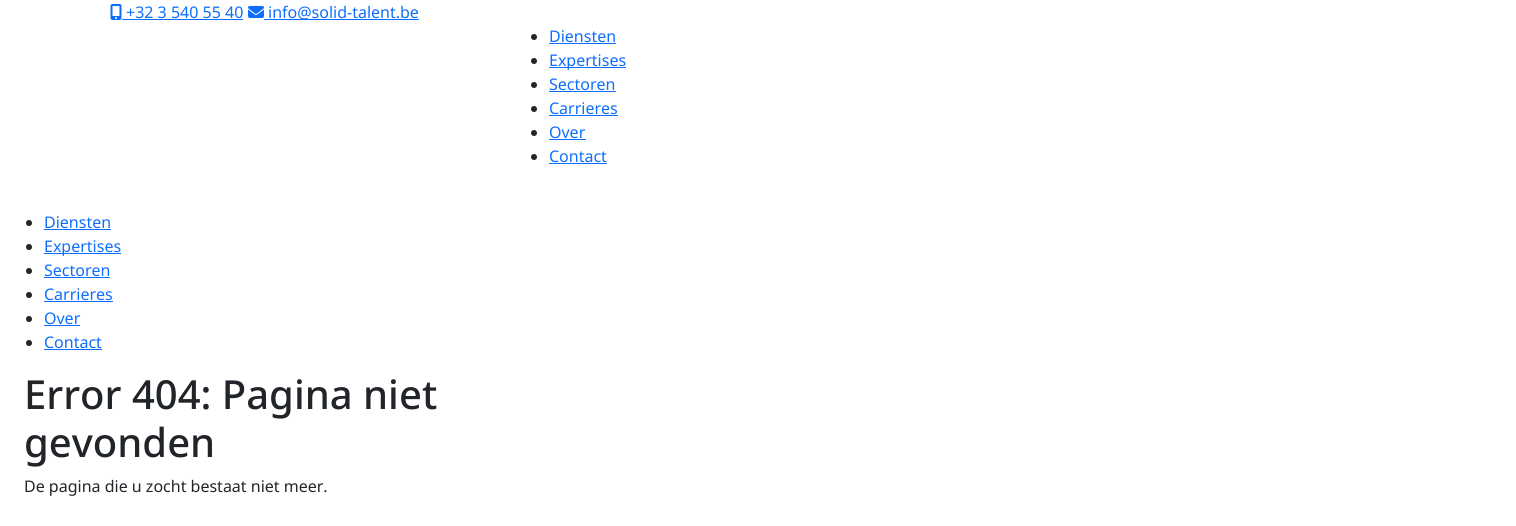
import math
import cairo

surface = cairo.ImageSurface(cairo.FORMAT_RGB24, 1516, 526)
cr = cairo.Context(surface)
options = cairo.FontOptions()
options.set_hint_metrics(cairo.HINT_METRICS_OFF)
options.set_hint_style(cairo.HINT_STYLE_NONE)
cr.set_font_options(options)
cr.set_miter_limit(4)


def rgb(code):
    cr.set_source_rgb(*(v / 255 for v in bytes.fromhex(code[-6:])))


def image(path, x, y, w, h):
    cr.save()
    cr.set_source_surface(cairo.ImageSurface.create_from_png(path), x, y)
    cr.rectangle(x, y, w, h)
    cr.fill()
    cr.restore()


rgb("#ffffff")
cr.paint()
image("img/1.png", 110, 4, 12, 16)
rgb("#0d6efd")
cr.rectangle(122, 19, 121, 1)
cr.fill()
image("img/2.png", 248, 6, 16, 12)
cr.rectangle(264, 19, 155, 1)
cr.fill()
rgb("#212529")
cr.arc(534, 37, 3, 0, 2 * math.pi)
cr.fill()
rgb("#0d6efd")
cr.rectangle(549, 43, 67, 1)
cr.fill()
rgb("#212529")
cr.arc(534, 61, 3, 0, 2 * math.pi)
cr.fill()
rgb("#0d6efd")
cr.rectangle(549, 67, 77, 1)
cr.fill()
rgb("#212529")
cr.arc(534, 85, 3, 0, 2 * math.pi)
cr.fill()
rgb("#0d6efd")
cr.rectangle(549, 91, 67, 1)
cr.fill()
rgb("#212529")
cr.arc(534, 109, 3, 0, 2 * math.pi)
cr.fill()
rgb("#0d6efd")
cr.rectangle(549, 115, 69, 1)
cr.fill()
rgb("#212529")
cr.arc(534, 133, 3, 0, 2 * math.pi)
cr.fill()
rgb("#0d6efd")
cr.rectangle(549, 139, 37, 1)
cr.fill()
rgb("#212529")
cr.arc(534, 157, 3, 0, 2 * math.pi)
cr.fill()
rgb("#0d6efd")
cr.rectangle(549, 163, 58, 1)
cr.fill()
rgb("#212529")
cr.arc(29, 223, 3, 0, 2 * math.pi)
cr.fill()
rgb("#0d6efd")
cr.rectangle(44, 229, 67, 1)
cr.fill()
rgb("#212529")
cr.arc(29, 247, 3, 0, 2 * math.pi)
cr.fill()
rgb("#0d6efd")
cr.rectangle(44, 253, 77, 1)
cr.fill()
rgb("#212529")
cr.arc(29, 271, 3, 0, 2 * math.pi)
cr.fill()
rgb("#0d6efd")
cr.rectangle(44, 277, 66, 1)
cr.fill()
rgb("#212529")
cr.arc(29, 295, 3, 0, 2 * math.pi)
cr.fill()
rgb("#0d6efd")
cr.rectangle(44, 301, 69, 1)
cr.fill()
rgb("#212529")
cr.arc(29, 319, 3, 0, 2 * math.pi)
cr.fill()
rgb("#0d6efd")
cr.rectangle(44, 325, 36, 1)
cr.fill()
rgb("#212529")
cr.arc(29, 343, 3, 0, 2 * math.pi)
cr.fill()
rgb("#0d6efd")
cr.rectangle(44, 349, 58, 1)
cr.fill()
cr.select_font_face("Noto Sans")
cr.set_font_size(16)
for x, y, s in [
    (126, 18, "+32 3 540 55 40"),
    (268, 18, "info@solid-talent.be"),
    (549, 42, "Diensten"),
    (549, 66, "Expertises"),
    (549, 90, "Sectoren"),
    (549, 114, "Carrieres"),
    (549, 138, "Over"),
    (549, 162, "Contact"),
    (44, 228, "Diensten"),
    (44, 252, "Expertises"),
    (44, 276, "Sectoren"),
    (44, 300, "Carrieres"),
    (44, 324, "Over"),
    (44, 348, "Contact"),
]:
    cr.move_to(x, y)
    cr.show_text(s)
cr.select_font_face("Noto Sans Medium")
cr.set_font_size(40)
rgb("#212529")
cr.move_to(24, 409)
cr.show_text("Error 404: Pagina niet")
cr.move_to(24, 457)
cr.show_text("gevonden")
cr.select_font_face("Noto Sans")
cr.set_font_size(16)
cr.move_to(24, 492)
cr.show_text("De pagina die u zocht bestaat niet meer.")
surface.write_to_png("page.png")
